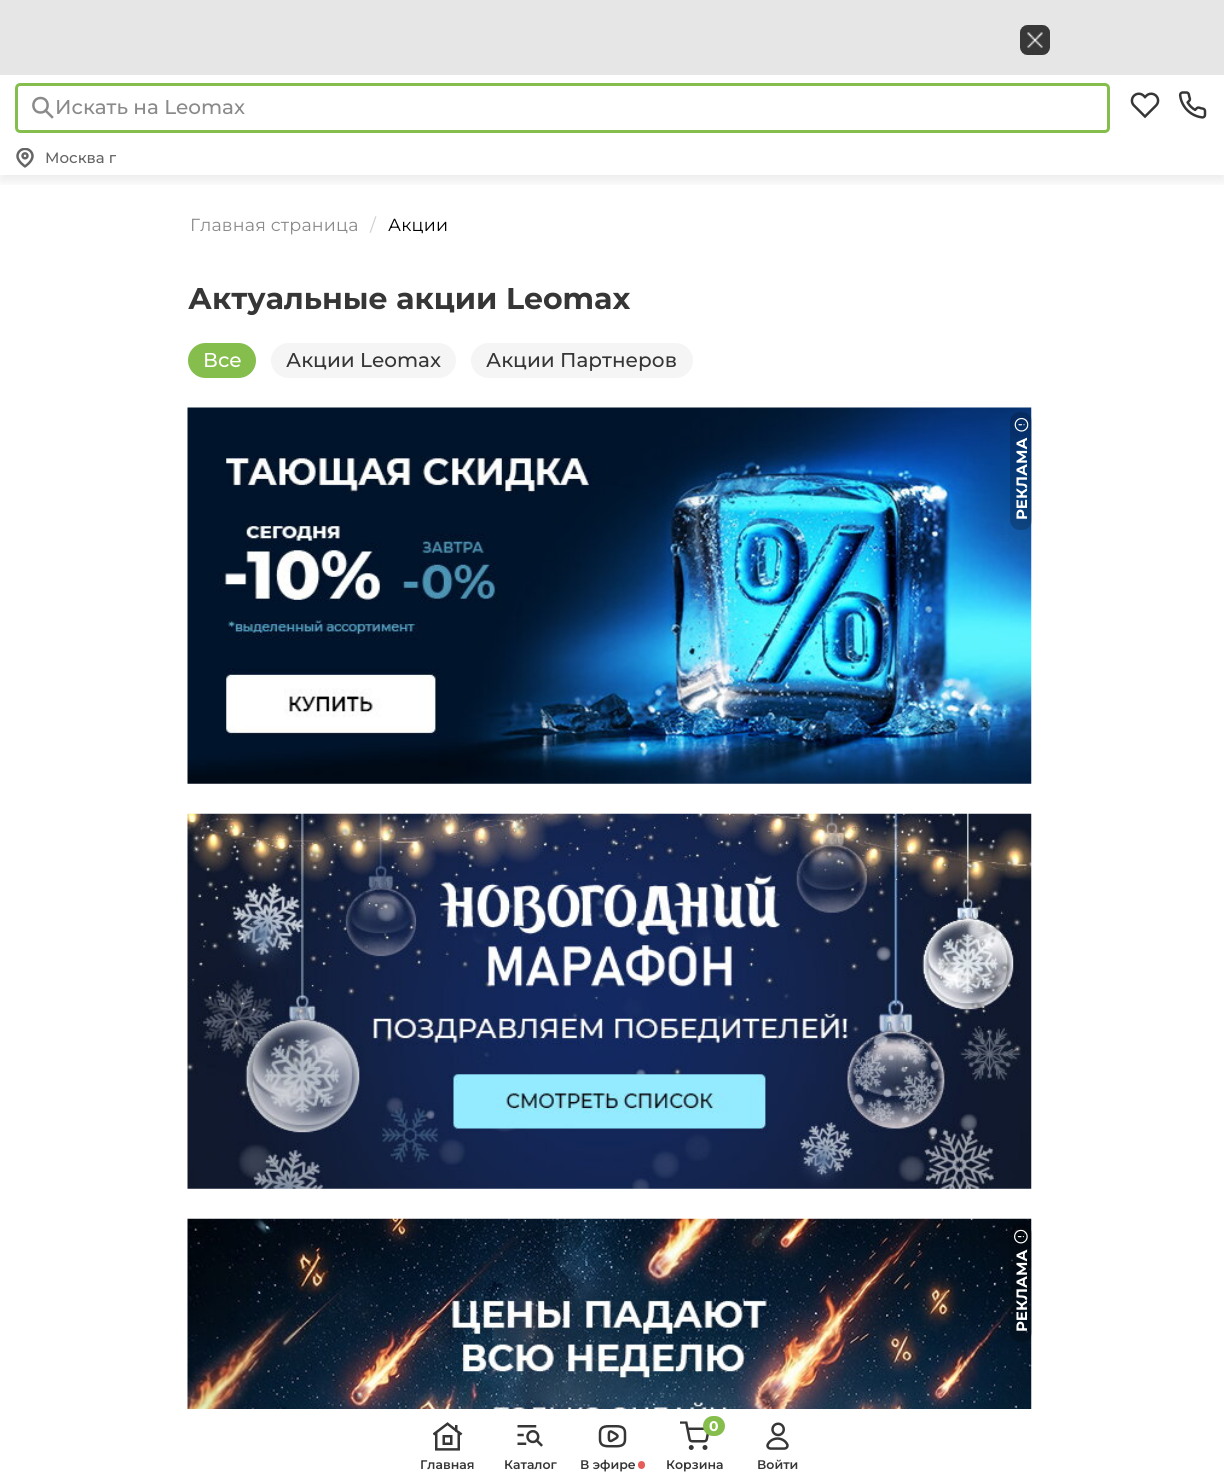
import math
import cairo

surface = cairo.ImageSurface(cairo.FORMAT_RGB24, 1224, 1484)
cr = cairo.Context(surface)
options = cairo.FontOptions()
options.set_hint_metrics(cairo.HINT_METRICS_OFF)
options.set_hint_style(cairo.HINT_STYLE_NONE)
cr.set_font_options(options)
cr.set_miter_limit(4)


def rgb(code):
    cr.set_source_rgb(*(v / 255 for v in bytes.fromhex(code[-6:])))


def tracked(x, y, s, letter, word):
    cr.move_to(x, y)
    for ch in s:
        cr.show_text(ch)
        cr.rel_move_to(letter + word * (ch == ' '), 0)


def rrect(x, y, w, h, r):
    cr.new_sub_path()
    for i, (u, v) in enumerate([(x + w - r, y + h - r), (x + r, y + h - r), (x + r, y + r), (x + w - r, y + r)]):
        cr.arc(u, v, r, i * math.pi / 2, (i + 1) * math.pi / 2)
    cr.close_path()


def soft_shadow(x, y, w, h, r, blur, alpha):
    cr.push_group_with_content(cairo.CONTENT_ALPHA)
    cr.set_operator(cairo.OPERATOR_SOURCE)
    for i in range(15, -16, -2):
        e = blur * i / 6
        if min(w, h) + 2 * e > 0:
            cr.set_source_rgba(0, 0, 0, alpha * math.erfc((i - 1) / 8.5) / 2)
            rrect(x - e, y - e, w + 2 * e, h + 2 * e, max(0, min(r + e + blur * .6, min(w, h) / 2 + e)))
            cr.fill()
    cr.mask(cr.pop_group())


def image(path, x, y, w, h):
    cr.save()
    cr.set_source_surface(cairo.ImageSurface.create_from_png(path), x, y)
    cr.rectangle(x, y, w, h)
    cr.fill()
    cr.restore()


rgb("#ffffff")
cr.paint()
rgb("#e6e6e6")
cr.rectangle(0, 0, 1224, 75)
cr.fill()
image("img/1.png", 1020, 25, 30, 30)
cr.save()
cr.rectangle(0, 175, 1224, 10)
cr.clip()
rgb("#000000")
soft_shadow(0, 81, 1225, 100, 0, 6, 0.08)
cr.restore()
rrect(16.5, 84.5, 1092, 47, 3.5)
rgb("#85be4c")
cr.set_line_width(3)
cr.stroke()
cr.new_path()
cr.move_to(40.5, 112.5)
cr.curve_to(50, 112.5, 50, 98, 40.5, 98)
cr.curve_to(31, 98, 31, 112.5, 40.5, 112.5)
cr.close_path()
rgb("#8a8a8a")
cr.set_line_width(2.5)
cr.set_line_cap(cairo.LINE_CAP_ROUND)
cr.set_line_join(cairo.LINE_JOIN_ROUND)
cr.stroke()
cr.new_path()
cr.move_to(52, 117)
cr.line_to(45.5, 110.5)
cr.set_line_cap(cairo.LINE_CAP_SQUARE)
cr.stroke()
image("img/2.png", 1130, 92, 30, 27)
image("img/3.png", 1178, 91, 29, 28)
image("img/4.png", 16, 148, 18, 20)
image("img/5.png", 433, 1422, 30, 29)
image("img/6.png", 517, 1425, 26, 22)
image("img/7.png", 598, 1425, 29, 23)
rgb("#e65d5b")
rrect(638, 1461, 7, 8, 3.5)
cr.fill()
image("img/8.png", 680, 1421, 29, 29)
rgb("#85be4c")
rrect(703, 1416, 22, 20, 10)
cr.fill()
image("img/9.png", 766, 1422, 23, 28)
rrect(188, 343, 68, 35, 17.5)
cr.fill()
rgb("#f5f5f5")
rrect(271, 343, 185, 35, 17.5)
cr.fill()
rrect(471, 343, 222, 35, 17.5)
cr.fill()
image("img/10.png", 187, 407, 845, 377)
cr.set_source_rgba(0, 0, 0, 0.2)
cr.new_path()
cr.move_to(1010, 520)
cr.line_to(1010, 422)
cr.curve_to(1010, 417, 1014, 412, 1020, 412)
cr.line_to(1022, 412)
cr.curve_to(1028, 412, 1032, 417, 1032, 422)
cr.line_to(1032, 520)
cr.curve_to(1032, 525, 1028, 530, 1022, 530)
cr.line_to(1020, 530)
cr.curve_to(1014, 530, 1010, 525, 1010, 520)
cr.close_path()
cr.fill()
image("img/11.png", 1014, 417, 15, 15)
image("img/12.png", 187, 813, 845, 376)
image("img/13.png", 187, 1218, 845, 191)
cr.new_path()
cr.move_to(1010, 1332)
cr.line_to(1010, 1234)
cr.curve_to(1010, 1229, 1014, 1224, 1020, 1224)
cr.line_to(1022, 1224)
cr.curve_to(1028, 1224, 1032, 1229, 1032, 1234)
cr.line_to(1032, 1332)
cr.curve_to(1032, 1337, 1028, 1342, 1022, 1342)
cr.line_to(1020, 1342)
cr.curve_to(1014, 1342, 1010, 1337, 1010, 1332)
cr.close_path()
cr.fill()
image("img/14.png", 1014, 1229, 14, 15)
cr.select_font_face("Montserrat Medium")
cr.set_font_size(20)
rgb("#8a8a8a")
cr.move_to(55, 114)
cr.show_text("Искать на Leomax")
cr.set_font_size(15)
rgb("#656565")
cr.move_to(45, 163)
cr.show_text("Москва г")
cr.select_font_face("Montserrat SemiBold")
cr.set_font_size(12.5)
rgb("#363636")
for x, y, s in [
    (420, 1469, "Главная"),
    (504, 1469, "Каталог"),
    (580, 1469, "В эфире"),
]:
    cr.move_to(x, y)
    cr.show_text(s)
cr.select_font_face("Montserrat", cairo.FONT_SLANT_NORMAL, cairo.FONT_WEIGHT_BOLD)
cr.set_font_size(14)
rgb("#ffffff")
cr.move_to(709, 1431)
cr.show_text("0")
cr.select_font_face("Montserrat SemiBold")
cr.set_font_size(12.5)
rgb("#363636")
cr.move_to(666, 1469)
cr.show_text("Корзина")
cr.move_to(757, 1469)
cr.show_text("Войти")
cr.select_font_face("Montserrat")
cr.set_font_size(17.5)
rgb("#8a8a8a")
tracked(190, 231, "Главная страница", 0.2, 0)
rgb("#cccccc")
tracked(370, 231, "/", 0.2, 0)
rgb("#000000")
tracked(388, 231, "Акции", 0.2, 0)
cr.select_font_face("Montserrat", cairo.FONT_SLANT_NORMAL, cairo.FONT_WEIGHT_BOLD)
cr.set_font_size(30)
rgb("#363636")
cr.move_to(188, 309)
cr.show_text("Актуальные акции Leomax")
cr.select_font_face("Montserrat Medium")
cr.set_font_size(20)
rgb("#ffffff")
cr.move_to(203, 367)
cr.show_text("Все")
rgb("#363636")
cr.move_to(286, 367)
cr.show_text("Акции Leomax")
cr.move_to(486, 367)
cr.show_text("Акции Партнеров")
cr.select_font_face("Montserrat", cairo.FONT_SLANT_NORMAL, cairo.FONT_WEIGHT_BOLD)
cr.set_font_size(15)
rgb("#ffffff")
cr.save()
cr.translate(1027, 520)
cr.rotate(-90 * math.pi / 180)
cr.move_to(0, 0)
cr.show_text("РЕКЛАМА")
cr.restore()
cr.save()
cr.translate(1027, 1332)
cr.rotate(-90 * math.pi / 180)
cr.move_to(0, 0)
cr.show_text("РЕКЛАМА")
cr.restore()
surface.write_to_png("page.png")
